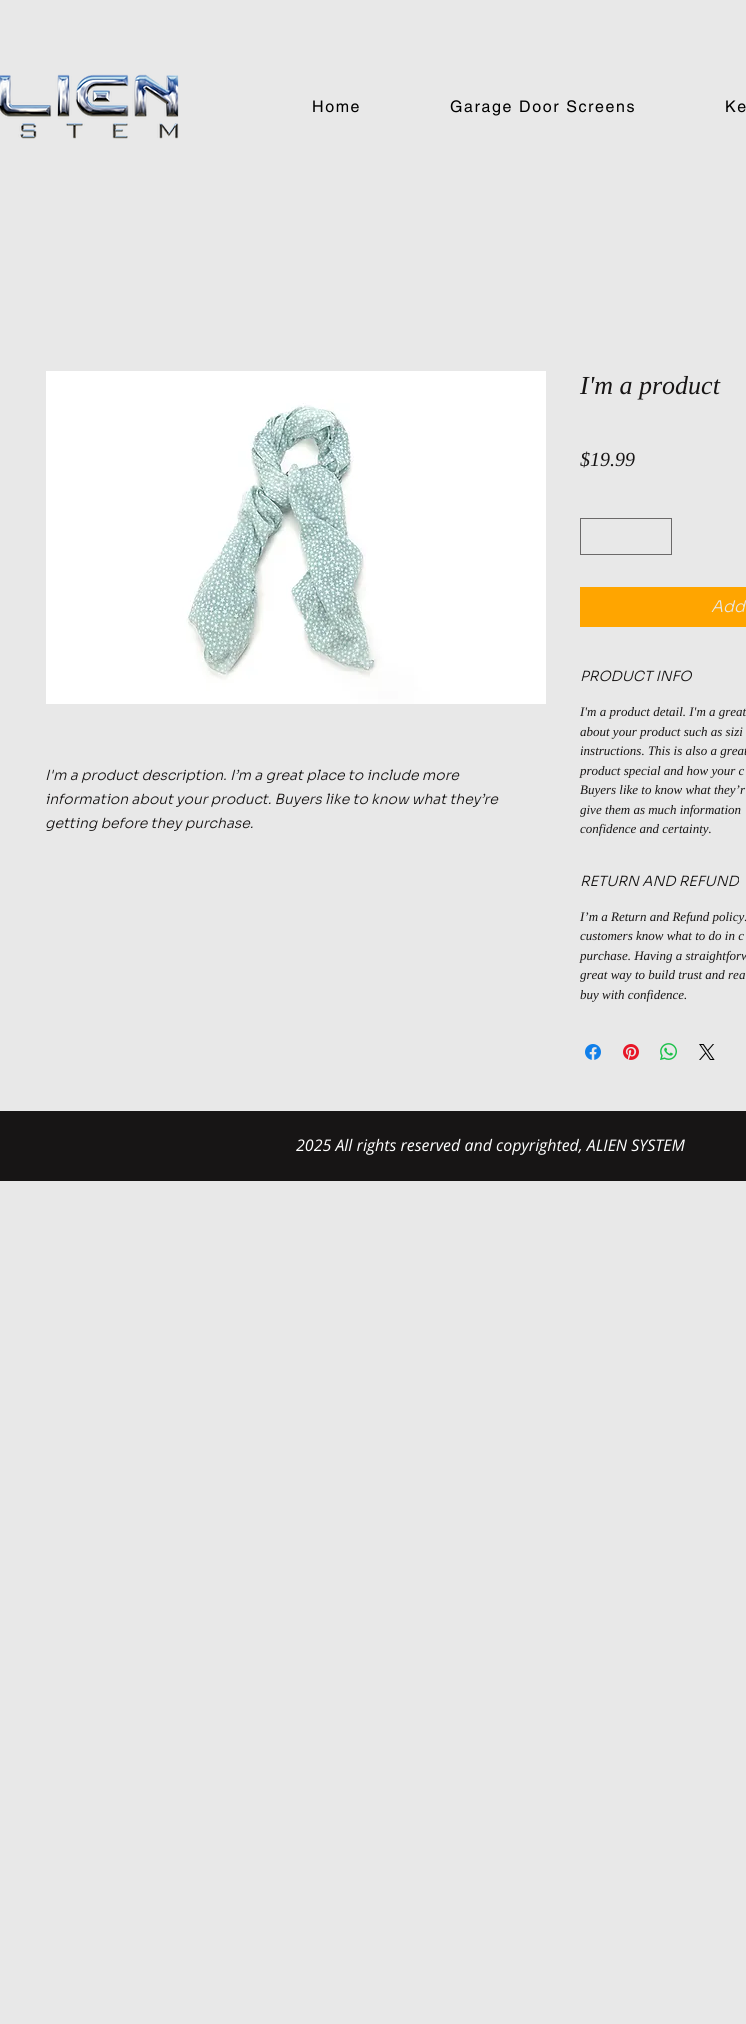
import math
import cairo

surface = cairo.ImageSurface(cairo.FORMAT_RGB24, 746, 2024)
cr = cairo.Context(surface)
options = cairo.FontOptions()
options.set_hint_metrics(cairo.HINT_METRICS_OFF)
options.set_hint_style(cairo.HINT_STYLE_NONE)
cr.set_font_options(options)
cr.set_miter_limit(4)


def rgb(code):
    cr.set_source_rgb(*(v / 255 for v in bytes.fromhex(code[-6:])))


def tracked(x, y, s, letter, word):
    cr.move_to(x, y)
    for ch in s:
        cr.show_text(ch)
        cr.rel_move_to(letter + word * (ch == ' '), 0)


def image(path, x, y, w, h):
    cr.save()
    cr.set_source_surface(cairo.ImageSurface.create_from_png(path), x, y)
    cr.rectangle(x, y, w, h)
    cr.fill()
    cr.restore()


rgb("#e8e8e8")
cr.paint()
image("img/1.png", 0, 74, 179, 65)
image("img/2.png", 46, 371, 500, 333)
cr.rectangle(580.5, 518.5, 91, 36)
rgb("#6b6969")
cr.set_line_width(1)
cr.stroke()
rgb("#ffa500")
cr.rectangle(580, 587, 166, 40)
cr.fill()
image("img/3.png", 585, 1044, 16, 16)
image("img/4.png", 623, 1044, 16, 16)
image("img/5.png", 660, 1043, 17, 17)
image("img/6.png", 699, 1044, 16, 16)
rgb("#171515")
cr.rectangle(0, 1111, 746, 70)
cr.fill()
cr.select_font_face("helvetica")
cr.set_font_size(16)
rgb("#000000")
for x, y, s in [
    (312, 112, "Home"),
    (450, 112, "Garage Door Screens"),
    (725, 112, "Ke"),
]:
    tracked(x, y, s, 1.6, 0)
cr.select_font_face("Sora Light", cairo.FONT_SLANT_ITALIC)
cr.set_font_size(14)
rgb("#171515")
for x, y, s in [
    (45, 780, "I'm a product description. I’m a great place to include more"),
    (45, 804, "information about your product. Buyers like to know what they’re"),
    (45, 828, "getting before they purchase."),
]:
    cr.move_to(x, y)
    cr.show_text(s)
cr.select_font_face("Liberation Serif", cairo.FONT_SLANT_ITALIC)
cr.set_font_size(26)
cr.move_to(580, 394)
cr.show_text("I'm a product")
cr.set_font_size(20)
cr.move_to(580, 466)
cr.show_text("$19.99")
cr.select_font_face("Sora Light", cairo.FONT_SLANT_ITALIC)
cr.set_font_size(16)
rgb("#e8e8e8")
cr.move_to(711, 612)
cr.show_text("Add")
cr.set_font_size(14)
rgb("#171515")
cr.move_to(580, 681)
cr.show_text("PRODUCT INFO")
cr.select_font_face("Liberation Serif", cairo.FONT_SLANT_ITALIC)
cr.set_font_size(13)
for x, y, s in [
    (580, 716, "I'm a product detail. I'm a great"),
    (580, 736, "about your product such as sizi"),
    (580, 755, "instructions. This is also a great"),
    (580, 775, "product special and how your c"),
    (580, 794, "Buyers like to know what they’r"),
    (580, 814, "give them as much information"),
    (580, 833, "confidence and certainty."),
]:
    cr.move_to(x, y)
    cr.show_text(s)
cr.select_font_face("Sora Light", cairo.FONT_SLANT_ITALIC)
cr.set_font_size(14)
cr.move_to(580, 886)
cr.show_text("RETURN AND REFUND")
cr.select_font_face("Liberation Serif", cairo.FONT_SLANT_ITALIC)
cr.set_font_size(13)
for x, y, s in [
    (580, 921, "I’m a Return and Refund policy."),
    (580, 940, "customers know what to do in c"),
    (580, 960, "purchase. Having a straightforw"),
    (580, 979, "great way to build trust and rea"),
    (580, 999, "buy with confidence."),
]:
    cr.move_to(x, y)
    cr.show_text(s)
cr.select_font_face("Open Sans", cairo.FONT_SLANT_ITALIC)
cr.set_font_size(16)
rgb("#ffffff")
cr.move_to(296, 1151)
cr.show_text("2025 All rights reserved and copyrighted, ALIEN SYSTEM")
surface.write_to_png("page.png")
